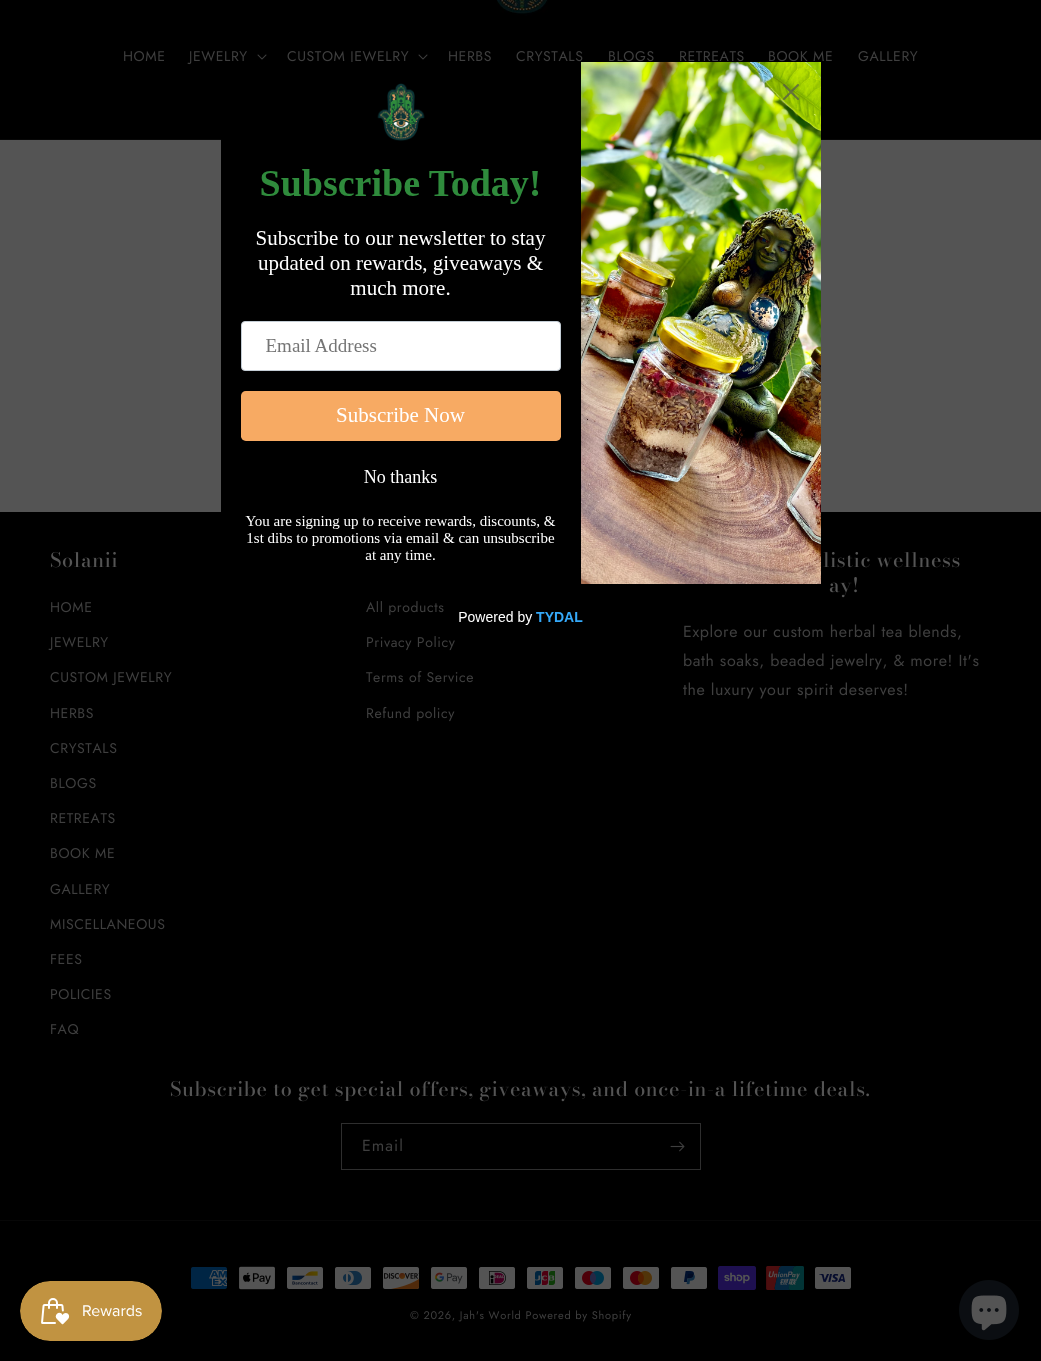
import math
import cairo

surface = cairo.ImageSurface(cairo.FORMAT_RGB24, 1041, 1361)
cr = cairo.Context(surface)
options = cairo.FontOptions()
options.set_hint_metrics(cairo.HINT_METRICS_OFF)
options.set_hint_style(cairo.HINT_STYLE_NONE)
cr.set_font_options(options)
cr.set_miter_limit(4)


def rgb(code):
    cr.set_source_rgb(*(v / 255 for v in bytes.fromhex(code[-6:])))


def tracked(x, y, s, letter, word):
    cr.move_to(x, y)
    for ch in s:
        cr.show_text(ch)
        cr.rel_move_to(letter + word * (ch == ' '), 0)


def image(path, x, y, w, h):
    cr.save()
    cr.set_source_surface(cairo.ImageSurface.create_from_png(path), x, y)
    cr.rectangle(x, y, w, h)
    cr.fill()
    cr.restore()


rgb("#ffffff")
cr.paint()
rgb("#000000")
cr.rectangle(0, 0, 1041, 139)
cr.fill()
rgb("#141414")
cr.rectangle(0, 139, 1041, 1)
cr.fill()
image("img/2.png", 497, 0, 51, 16)
image("img/3.png", 257, 54, 10, 6)
image("img/3.png", 418, 54, 10, 6)
rgb("#000000")
cr.rectangle(0, 512, 1041, 849)
cr.fill()
cr.rectangle(341.5, 1123.5, 359, 46)
rgb("#8c8c8c")
cr.set_line_width(1)
cr.stroke()
image("img/4.png", 670, 1141, 15, 11)
rgb("#141414")
cr.rectangle(0, 1220, 1041, 1)
cr.fill()
image("img/5.png", 191, 1267, 36, 22)
image("img/6.png", 239, 1266, 36, 24)
image("img/7.png", 287, 1267, 36, 22)
image("img/8.png", 335, 1267, 36, 22)
image("img/9.png", 383, 1267, 37, 22)
image("img/10.png", 431, 1267, 36, 22)
image("img/11.png", 479, 1267, 36, 22)
image("img/12.png", 527, 1267, 36, 22)
image("img/13.png", 575, 1267, 36, 22)
image("img/14.png", 623, 1267, 36, 22)
image("img/15.png", 671, 1267, 36, 22)
image("img/16.png", 718, 1266, 38, 24)
image("img/17.png", 766, 1266, 38, 24)
image("img/18.png", 815, 1267, 36, 22)
rgb("#202a36")
cr.arc(989, 1310, 30, 0, 2 * math.pi)
cr.fill()
image("img/19.png", 971, 1295, 36, 36)
cr.select_font_face("Jost")
cr.set_font_size(14)
rgb("#bfbfbf")
for x, y, s in [
    (123, 61, "HOME"),
    (189, 61, "JEWELRY"),
    (287, 61, "CUSTOM JEWELRY"),
    (448, 61, "HERBS"),
    (516, 61, "CRYSTALS"),
    (608, 61, "BLOGS"),
    (679, 61, "RETREATS"),
    (768, 61, "BOOK ME"),
    (858, 61, "GALLERY"),
]:
    tracked(x, y, s, 0.6, 0)
cr.select_font_face("Bodoni Moda Medium")
cr.set_font_size(19.8)
rgb("#ffffff")
tracked(50, 567, "Solanii", 0.65, 0)
cr.select_font_face("Jost")
cr.set_font_size(14)
rgb("#bfbfbf")
for x, y, s in [
    (50, 612, "HOME"),
    (50, 647, "JEWELRY"),
    (50, 682, "CUSTOM JEWELRY"),
    (50, 718, "HERBS"),
    (50, 753, "CRYSTALS"),
    (50, 788, "BLOGS"),
    (50, 823, "RETREATS"),
    (50, 858, "BOOK ME"),
    (50, 894, "GALLERY"),
    (50, 929, "MISCELLANEOUS"),
    (50, 964, "FEES"),
    (50, 999, "POLICIES"),
    (50, 1034, "FAQ"),
    (366, 612, "All products"),
    (366, 647, "Privacy Policy"),
    (366, 682, "Terms of Service"),
    (366, 718, "Refund policy"),
]:
    tracked(x, y, s, 0.6, 0)
cr.select_font_face("Bodoni Moda Medium")
cr.set_font_size(19.8)
rgb("#ffffff")
tracked(823, 567, "listic wellness", 0.65, 0)
tracked(829, 592, "ay!", 0.65, 0)
cr.select_font_face("Jost")
cr.set_font_size(16)
rgb("#bfbfbf")
for x, y, s in [
    (683, 637, "Explore our custom herbal tea blends,"),
    (683, 666, "bath soaks, beaded jewelry, & more! It's"),
    (683, 695, "the luxury your spirit deserves!"),
]:
    tracked(x, y, s, 0.6, 0)
cr.select_font_face("Bodoni Moda Medium")
cr.set_font_size(19.8)
rgb("#ffffff")
tracked(170, 1096, "Subscribe to get special offers, giveaways, and once-in-a lifetime deals.", 0.65, 0)
cr.select_font_face("Jost")
cr.set_font_size(16)
rgb("#bfbfbf")
tracked(362, 1151, "Email", 1, 0)
cr.set_font_size(11)
tracked(410, 1319, "© 2026, Jah's World Powered by Shopify", 0.7, 0)
image("img/1.png", 0, 0, 1041, 1340)
image("img/20.png", 20, 1281, 142, 60)
surface.write_to_png("page.png")
